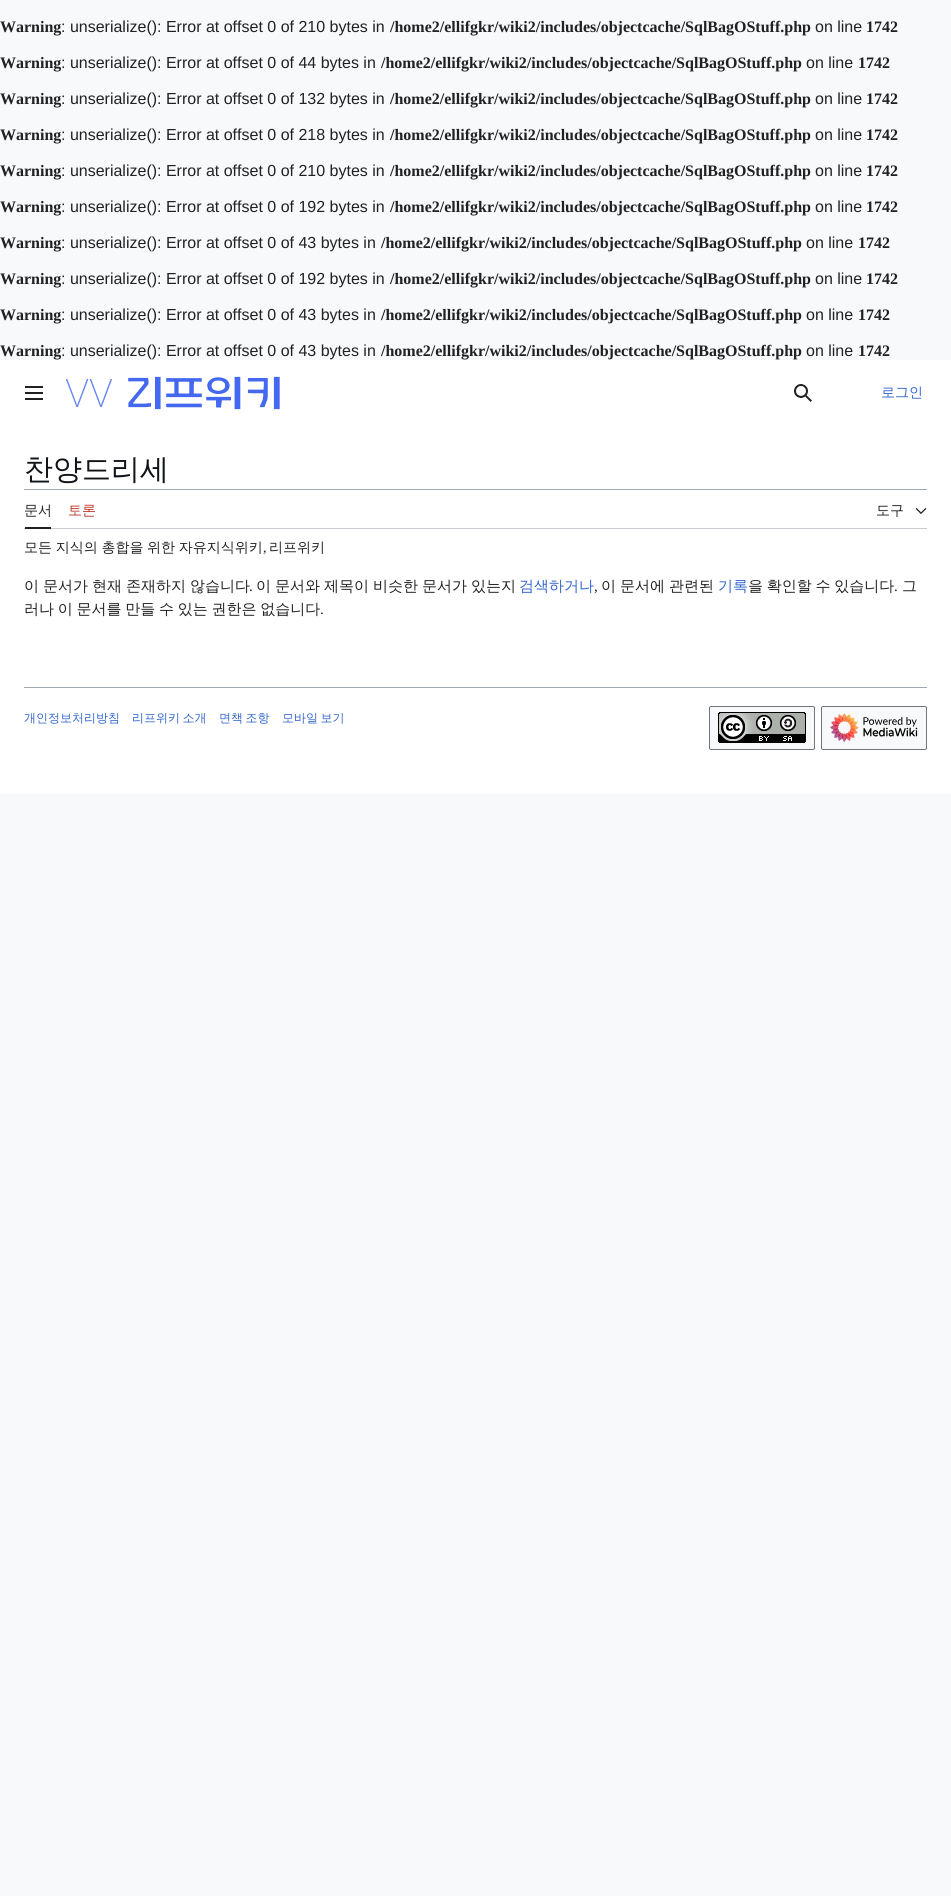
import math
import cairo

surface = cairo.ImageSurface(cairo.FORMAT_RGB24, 951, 1896)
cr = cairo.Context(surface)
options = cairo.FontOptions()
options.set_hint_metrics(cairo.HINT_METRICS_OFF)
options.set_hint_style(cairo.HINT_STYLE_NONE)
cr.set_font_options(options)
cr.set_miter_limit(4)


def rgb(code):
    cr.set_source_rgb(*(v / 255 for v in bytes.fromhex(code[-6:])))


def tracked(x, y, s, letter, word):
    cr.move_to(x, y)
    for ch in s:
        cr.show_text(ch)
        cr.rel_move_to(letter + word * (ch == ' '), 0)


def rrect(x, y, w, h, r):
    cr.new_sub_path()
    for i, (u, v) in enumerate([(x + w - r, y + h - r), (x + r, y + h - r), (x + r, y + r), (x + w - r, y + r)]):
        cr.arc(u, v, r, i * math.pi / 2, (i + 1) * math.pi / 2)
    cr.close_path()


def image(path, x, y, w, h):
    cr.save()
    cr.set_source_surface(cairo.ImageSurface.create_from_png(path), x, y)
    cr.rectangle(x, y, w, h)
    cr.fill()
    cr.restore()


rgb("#f8f9fa")
cr.paint()
rgb("#ffffff")
cr.rectangle(0, 360, 951, 434)
cr.fill()
image("img/1.png", 25, 386, 18, 14)
image("img/2.png", 66, 379, 46, 28)
image("img/3.png", 128, 376, 152, 34)
image("img/4.png", 794, 384, 18, 18)
for x, y, w, h, color in [
    (24, 489, 903, 1, "#a2a9b1"),
    (24, 528, 903, 1, "#c8ccd1"),
    (25, 527, 26, 2, "#202122"),
]:
    rgb(color)
    cr.rectangle(x, y, w, h)
    cr.fill()
image("img/5.png", 915, 508, 12, 6)
rgb("#a2a9b1")
cr.rectangle(24, 687, 903, 1)
cr.fill()
rgb("#f8f9fa")
rrect(709.5, 706.5, 105, 43, 1.5)
cr.fill_preserve()
rgb("#72777d")
cr.set_line_width(1)
cr.stroke()
image("img/6.png", 718, 712, 88, 31)
rgb("#f8f9fa")
rrect(821.5, 706.5, 105, 43, 1.5)
cr.fill_preserve()
rgb("#72777d")
cr.stroke()
image("img/7.png", 830, 713, 88, 29)
cr.select_font_face("Liberation Serif", cairo.FONT_SLANT_NORMAL, cairo.FONT_WEIGHT_BOLD)
cr.set_font_size(16)
rgb("#202122")
cr.move_to(0, 32)
cr.show_text("Warning")
cr.select_font_face("Liberation Sans")
cr.move_to(61, 32)
cr.show_text(": unserialize(): Error at offset 0 of 210 bytes in")
cr.select_font_face("Liberation Serif", cairo.FONT_SLANT_NORMAL, cairo.FONT_WEIGHT_BOLD)
cr.move_to(390, 32)
cr.show_text("/home2/ellifgkr/wiki2/includes/objectcache/SqlBagOStuff.php")
cr.select_font_face("Liberation Sans")
cr.move_to(815, 32)
cr.show_text("on line")
cr.select_font_face("Liberation Serif", cairo.FONT_SLANT_NORMAL, cairo.FONT_WEIGHT_BOLD)
cr.move_to(866, 32)
cr.show_text("1742")
cr.move_to(0, 68)
cr.show_text("Warning")
cr.select_font_face("Liberation Sans")
cr.move_to(61, 68)
cr.show_text(": unserialize(): Error at offset 0 of 44 bytes in")
cr.select_font_face("Liberation Serif", cairo.FONT_SLANT_NORMAL, cairo.FONT_WEIGHT_BOLD)
cr.move_to(381, 68)
cr.show_text("/home2/ellifgkr/wiki2/includes/objectcache/SqlBagOStuff.php")
cr.select_font_face("Liberation Sans")
cr.move_to(806, 68)
cr.show_text("on line")
cr.select_font_face("Liberation Serif", cairo.FONT_SLANT_NORMAL, cairo.FONT_WEIGHT_BOLD)
cr.move_to(858, 68)
cr.show_text("1742")
cr.move_to(0, 104)
cr.show_text("Warning")
cr.select_font_face("Liberation Sans")
cr.move_to(61, 104)
cr.show_text(": unserialize(): Error at offset 0 of 132 bytes in")
cr.select_font_face("Liberation Serif", cairo.FONT_SLANT_NORMAL, cairo.FONT_WEIGHT_BOLD)
cr.move_to(390, 104)
cr.show_text("/home2/ellifgkr/wiki2/includes/objectcache/SqlBagOStuff.php")
cr.select_font_face("Liberation Sans")
cr.move_to(815, 104)
cr.show_text("on line")
cr.select_font_face("Liberation Serif", cairo.FONT_SLANT_NORMAL, cairo.FONT_WEIGHT_BOLD)
cr.move_to(866, 104)
cr.show_text("1742")
cr.move_to(0, 140)
cr.show_text("Warning")
cr.select_font_face("Liberation Sans")
cr.move_to(61, 140)
cr.show_text(": unserialize(): Error at offset 0 of 218 bytes in")
cr.select_font_face("Liberation Serif", cairo.FONT_SLANT_NORMAL, cairo.FONT_WEIGHT_BOLD)
cr.move_to(390, 140)
cr.show_text("/home2/ellifgkr/wiki2/includes/objectcache/SqlBagOStuff.php")
cr.select_font_face("Liberation Sans")
cr.move_to(815, 140)
cr.show_text("on line")
cr.select_font_face("Liberation Serif", cairo.FONT_SLANT_NORMAL, cairo.FONT_WEIGHT_BOLD)
cr.move_to(866, 140)
cr.show_text("1742")
cr.move_to(0, 176)
cr.show_text("Warning")
cr.select_font_face("Liberation Sans")
cr.move_to(61, 176)
cr.show_text(": unserialize(): Error at offset 0 of 210 bytes in")
cr.select_font_face("Liberation Serif", cairo.FONT_SLANT_NORMAL, cairo.FONT_WEIGHT_BOLD)
cr.move_to(390, 176)
cr.show_text("/home2/ellifgkr/wiki2/includes/objectcache/SqlBagOStuff.php")
cr.select_font_face("Liberation Sans")
cr.move_to(815, 176)
cr.show_text("on line")
cr.select_font_face("Liberation Serif", cairo.FONT_SLANT_NORMAL, cairo.FONT_WEIGHT_BOLD)
cr.move_to(866, 176)
cr.show_text("1742")
cr.move_to(0, 212)
cr.show_text("Warning")
cr.select_font_face("Liberation Sans")
cr.move_to(61, 212)
cr.show_text(": unserialize(): Error at offset 0 of 192 bytes in")
cr.select_font_face("Liberation Serif", cairo.FONT_SLANT_NORMAL, cairo.FONT_WEIGHT_BOLD)
cr.move_to(390, 212)
cr.show_text("/home2/ellifgkr/wiki2/includes/objectcache/SqlBagOStuff.php")
cr.select_font_face("Liberation Sans")
cr.move_to(815, 212)
cr.show_text("on line")
cr.select_font_face("Liberation Serif", cairo.FONT_SLANT_NORMAL, cairo.FONT_WEIGHT_BOLD)
cr.move_to(866, 212)
cr.show_text("1742")
cr.move_to(0, 248)
cr.show_text("Warning")
cr.select_font_face("Liberation Sans")
cr.move_to(61, 248)
cr.show_text(": unserialize(): Error at offset 0 of 43 bytes in")
cr.select_font_face("Liberation Serif", cairo.FONT_SLANT_NORMAL, cairo.FONT_WEIGHT_BOLD)
cr.move_to(381, 248)
cr.show_text("/home2/ellifgkr/wiki2/includes/objectcache/SqlBagOStuff.php")
cr.select_font_face("Liberation Sans")
cr.move_to(806, 248)
cr.show_text("on line")
cr.select_font_face("Liberation Serif", cairo.FONT_SLANT_NORMAL, cairo.FONT_WEIGHT_BOLD)
cr.move_to(858, 248)
cr.show_text("1742")
cr.move_to(0, 284)
cr.show_text("Warning")
cr.select_font_face("Liberation Sans")
cr.move_to(61, 284)
cr.show_text(": unserialize(): Error at offset 0 of 192 bytes in")
cr.select_font_face("Liberation Serif", cairo.FONT_SLANT_NORMAL, cairo.FONT_WEIGHT_BOLD)
cr.move_to(390, 284)
cr.show_text("/home2/ellifgkr/wiki2/includes/objectcache/SqlBagOStuff.php")
cr.select_font_face("Liberation Sans")
cr.move_to(815, 284)
cr.show_text("on line")
cr.select_font_face("Liberation Serif", cairo.FONT_SLANT_NORMAL, cairo.FONT_WEIGHT_BOLD)
cr.move_to(866, 284)
cr.show_text("1742")
cr.move_to(0, 320)
cr.show_text("Warning")
cr.select_font_face("Liberation Sans")
cr.move_to(61, 320)
cr.show_text(": unserialize(): Error at offset 0 of 43 bytes in")
cr.select_font_face("Liberation Serif", cairo.FONT_SLANT_NORMAL, cairo.FONT_WEIGHT_BOLD)
cr.move_to(381, 320)
cr.show_text("/home2/ellifgkr/wiki2/includes/objectcache/SqlBagOStuff.php")
cr.select_font_face("Liberation Sans")
cr.move_to(806, 320)
cr.show_text("on line")
cr.select_font_face("Liberation Serif", cairo.FONT_SLANT_NORMAL, cairo.FONT_WEIGHT_BOLD)
cr.move_to(858, 320)
cr.show_text("1742")
cr.move_to(0, 356)
cr.show_text("Warning")
cr.select_font_face("Liberation Sans")
cr.move_to(61, 356)
cr.show_text(": unserialize(): Error at offset 0 of 43 bytes in")
cr.select_font_face("Liberation Serif", cairo.FONT_SLANT_NORMAL, cairo.FONT_WEIGHT_BOLD)
cr.move_to(381, 356)
cr.show_text("/home2/ellifgkr/wiki2/includes/objectcache/SqlBagOStuff.php")
cr.select_font_face("Liberation Sans")
cr.move_to(806, 356)
cr.show_text("on line")
cr.select_font_face("Liberation Serif", cairo.FONT_SLANT_NORMAL, cairo.FONT_WEIGHT_BOLD)
cr.move_to(858, 356)
cr.show_text("1742")
cr.select_font_face("WenQuanYi Zen Hei Medium")
cr.set_font_size(14)
rgb("#3366cc")
cr.move_to(881, 397)
cr.show_text("로그인")
cr.set_font_size(29)
rgb("#101418")
cr.move_to(24, 479)
cr.show_text("찬양드리세")
cr.set_font_size(14)
rgb("#202122")
cr.move_to(24, 515)
cr.show_text("문서")
rgb("#bf3c2c")
cr.move_to(68, 515)
cr.show_text("토론")
rgb("#202122")
cr.move_to(876, 515)
cr.show_text("도구")
tracked(24, 552, "모든 지식의 총합을 위한 자유지식위키", 0, -0.5)
cr.select_font_face("Liberation Serif")
cr.move_to(263, 552)
cr.show_text(",")
cr.select_font_face("WenQuanYi Zen Hei Medium")
cr.move_to(269, 552)
cr.show_text("리프위키")
cr.set_font_size(15)
tracked(24, 591, "이 문서가 현재 존재하지 않습니다", 0, -0.5)
cr.select_font_face("Liberation Serif")
cr.move_to(249, 591)
cr.show_text(".")
cr.select_font_face("WenQuanYi Zen Hei Medium")
tracked(256, 591, "이 문서와 제목이 비슷한 문서가 있는지", 0, -0.5)
rgb("#3366cc")
cr.move_to(519, 591)
cr.show_text("검색하거나")
cr.select_font_face("Liberation Serif")
rgb("#202122")
cr.move_to(594, 591)
cr.show_text(",")
cr.select_font_face("WenQuanYi Zen Hei Medium")
tracked(601, 591, "이 문서에 관련된", 0, -0.5)
rgb("#3366cc")
cr.move_to(718, 591)
cr.show_text("기록")
rgb("#202122")
tracked(748, 591, "을 확인할 수 있습니다", 0, -0.75)
cr.select_font_face("Liberation Serif")
cr.move_to(894, 591)
cr.show_text(".")
cr.select_font_face("WenQuanYi Zen Hei Medium")
cr.move_to(902, 591)
cr.show_text("그")
tracked(24, 614, "러나 이 문서를 만들 수 있는 권한은 없습니다", 0, -0.75)
cr.select_font_face("Liberation Serif")
cr.move_to(320, 614)
cr.show_text(".")
cr.select_font_face("WenQuanYi Zen Hei Medium")
cr.set_font_size(12)
rgb("#3366cc")
cr.move_to(24, 722)
cr.show_text("개인정보처리방침")
for x, y, s in [
    (132, 722, "리프위키 소개"),
    (219, 722, "면책 조항"),
    (282, 722, "모바일 보기"),
]:
    tracked(x, y, s, 0, -1)
surface.write_to_png("page.png")
